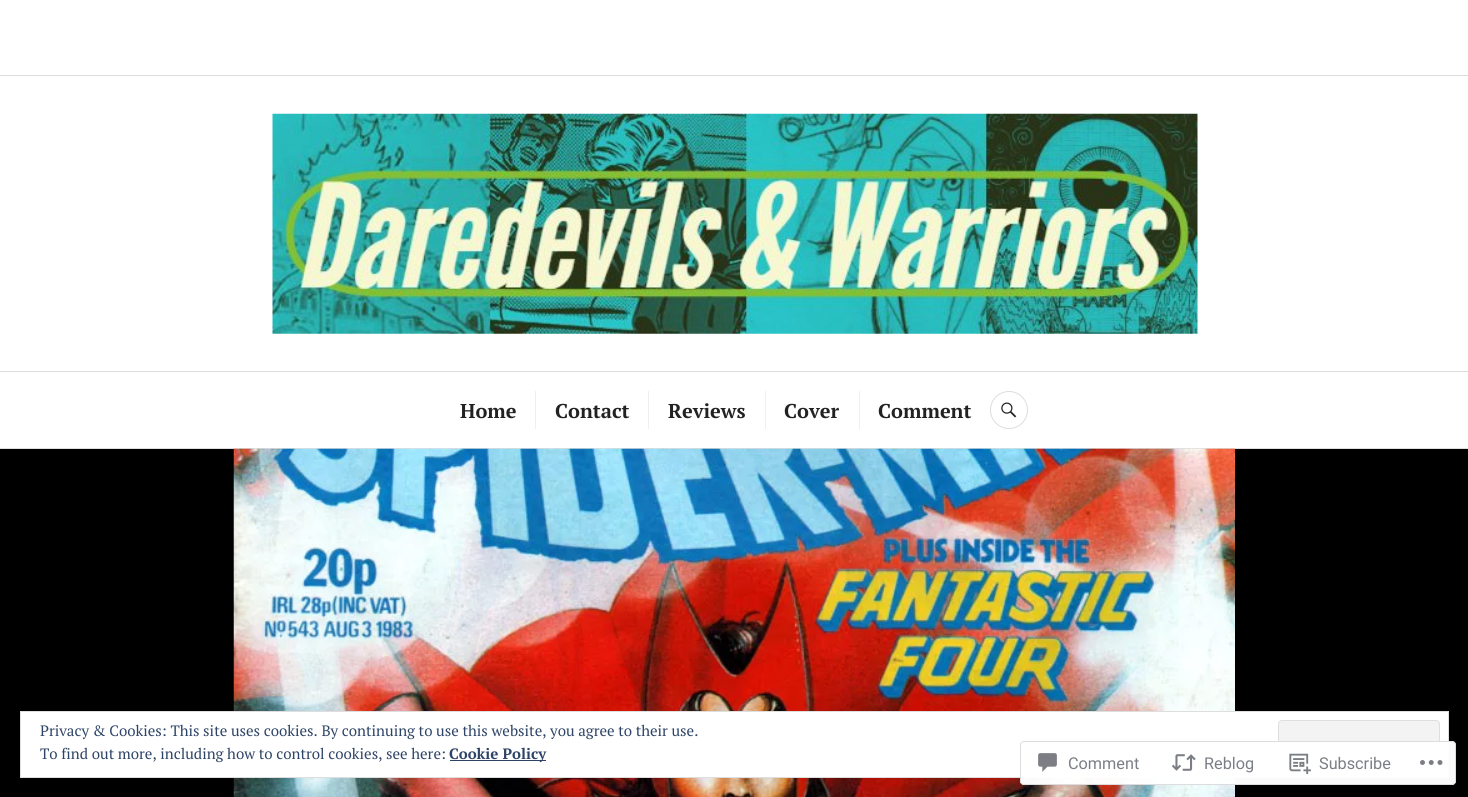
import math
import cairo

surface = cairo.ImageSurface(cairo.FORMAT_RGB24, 1468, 797)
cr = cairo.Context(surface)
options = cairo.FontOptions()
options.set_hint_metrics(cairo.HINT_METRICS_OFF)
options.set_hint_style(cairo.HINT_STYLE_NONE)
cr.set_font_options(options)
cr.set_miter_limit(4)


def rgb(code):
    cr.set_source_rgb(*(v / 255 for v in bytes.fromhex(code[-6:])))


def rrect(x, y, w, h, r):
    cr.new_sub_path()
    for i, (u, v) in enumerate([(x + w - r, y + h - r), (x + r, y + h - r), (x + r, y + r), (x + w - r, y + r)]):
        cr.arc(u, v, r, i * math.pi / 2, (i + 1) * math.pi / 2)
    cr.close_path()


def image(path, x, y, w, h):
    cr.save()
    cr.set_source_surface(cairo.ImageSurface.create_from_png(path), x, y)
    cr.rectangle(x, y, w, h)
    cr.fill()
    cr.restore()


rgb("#ffffff")
cr.paint()
rgb("#dddddd")
cr.rectangle(0, 448, 1468, 1)
cr.fill()
cr.rectangle(0, 75, 1468, 1)
cr.fill()
image("img/1.png", 272, 113, 926, 221)
for x, y, w, h, color in [
    (0, 371, 1468, 1, "#dddddd"),
    (535, 391, 1, 38, "#efefef"),
    (648, 391, 1, 38, "#efefef"),
    (765, 391, 1, 38, "#efefef"),
    (859, 391, 1, 38, "#efefef"),
]:
    rgb(color)
    cr.rectangle(x, y, w, h)
    cr.fill()
cr.arc(1009, 410, 18.5, 0, 2 * math.pi)
rgb("#dddddd")
cr.set_line_width(1)
cr.stroke()
image("img/2.png", 1001, 402, 16, 16)
rgb("#000000")
cr.rectangle(0, 449, 1468, 348)
cr.fill()
image("img/3.png", 233, 448, 1002, 349)
rgb("#ffffff")
cr.rectangle(20.5, 711.5, 1428, 66)
cr.fill_preserve()
rgb("#dedede")
cr.stroke()
rgb("#f3f3f3")
rrect(1278.5, 720.5, 161, 48, 3.5)
cr.fill_preserve()
rgb("#dedede")
cr.stroke()
rgb("#2e4467")
cr.rectangle(450, 760, 96, 1)
cr.fill()
cr.set_source_rgba(1, 1, 1, 0.98)
rrect(1020, 741, 436, 44, 4)
cr.fill()
rrect(1020.5, 741.5, 435, 43, 3.5)
cr.set_source_rgba(0.863, 0.863, 0.871, 0.98)
cr.stroke()
image("img/4.png", 1038, 753, 19, 19)
image("img/5.png", 1171, 754, 25, 17)
image("img/6.png", 1289, 753, 22, 22)
image("img/7.png", 1420, 760, 23, 5)
cr.select_font_face("PT Serif", cairo.FONT_SLANT_NORMAL, cairo.FONT_WEIGHT_BOLD)
cr.set_font_size(20)
rgb("#222222")
for x, y, s in [
    (460, 418, "Home"),
    (555, 418, "Contact"),
    (668, 418, "Reviews"),
    (784, 418, "Cover"),
    (878, 418, "Comment"),
]:
    cr.move_to(x, y)
    cr.show_text(s)
cr.select_font_face("PT Serif")
cr.set_font_size(15)
rgb("#2e4467")
cr.move_to(40, 736)
cr.show_text("Privacy & Cookies: This site uses cookies. By continuing to use this website, you agree to their use.")
cr.move_to(40, 759)
cr.show_text("To find out more, including how to control cookies, see here:")
cr.select_font_face("PT Serif", cairo.FONT_SLANT_NORMAL, cairo.FONT_WEIGHT_BOLD)
cr.move_to(449, 759)
cr.show_text("Cookie Policy")
cr.select_font_face("Roboto")
cr.set_font_size(16.25)
rgb("#7b7f85")
for x, y, s in [
    (1068, 769, "Comment"),
    (1204, 769, "Reblog"),
    (1319, 769, "Subscribe"),
]:
    cr.move_to(x, y)
    cr.show_text(s)
surface.write_to_png("page.png")
